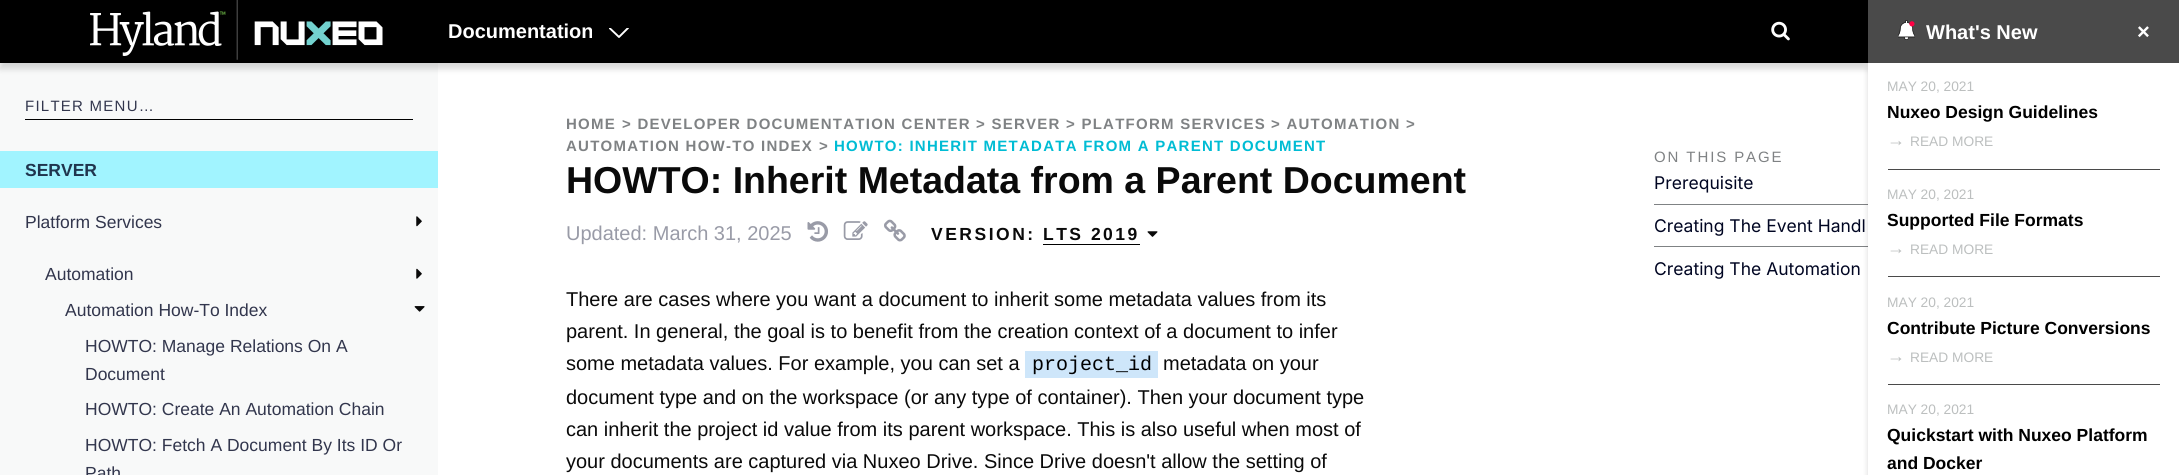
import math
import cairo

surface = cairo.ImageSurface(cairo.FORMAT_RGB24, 2179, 475)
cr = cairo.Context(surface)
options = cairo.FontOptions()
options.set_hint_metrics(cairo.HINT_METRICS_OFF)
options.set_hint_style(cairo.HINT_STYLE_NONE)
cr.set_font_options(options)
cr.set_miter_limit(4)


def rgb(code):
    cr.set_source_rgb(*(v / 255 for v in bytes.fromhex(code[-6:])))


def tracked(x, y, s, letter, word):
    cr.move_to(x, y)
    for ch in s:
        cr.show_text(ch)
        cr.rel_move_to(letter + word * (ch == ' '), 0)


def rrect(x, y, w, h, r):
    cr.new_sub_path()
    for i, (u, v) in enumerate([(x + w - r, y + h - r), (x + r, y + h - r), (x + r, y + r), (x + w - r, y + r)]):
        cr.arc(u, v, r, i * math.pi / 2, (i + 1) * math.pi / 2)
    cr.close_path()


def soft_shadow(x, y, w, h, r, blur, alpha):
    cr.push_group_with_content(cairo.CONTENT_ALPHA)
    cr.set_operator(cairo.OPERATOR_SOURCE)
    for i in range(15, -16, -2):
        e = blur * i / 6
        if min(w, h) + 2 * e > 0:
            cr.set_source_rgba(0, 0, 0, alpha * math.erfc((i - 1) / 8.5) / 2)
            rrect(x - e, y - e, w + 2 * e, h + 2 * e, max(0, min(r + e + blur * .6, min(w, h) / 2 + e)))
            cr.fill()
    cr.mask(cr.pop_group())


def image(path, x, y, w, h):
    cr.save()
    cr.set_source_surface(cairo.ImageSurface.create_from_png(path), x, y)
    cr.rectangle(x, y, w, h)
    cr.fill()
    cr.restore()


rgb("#ffffff")
cr.paint()
rgb("#f8f9f9")
cr.rectangle(0, 63, 438, 412)
cr.fill()
rgb("#000000")
soft_shadow(0, 6, 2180, 63, 0, 3, 0.15)
rgb("#000000")
cr.rectangle(0, 0, 1868, 63)
cr.fill()
image("img/1.png", 90, 0, 293, 60)
cr.save()
cr.rectangle(609, 28, 20, 10)
cr.clip()
cr.new_path()
cr.move_to(609.5, 28)
cr.line_to(619, 37)
cr.line_to(628, 28)
cr.line_to(619, 37)
cr.close_path()
rgb("#ffffff")
cr.set_line_width(1.9)
cr.set_line_cap(cairo.LINE_CAP_ROUND)
cr.set_line_join(cairo.LINE_JOIN_ROUND)
cr.stroke()
cr.restore()
image("img/2.png", 1771, 21, 19, 20)
rgb("#4a4a4a")
cr.rectangle(1868, 0, 311, 63)
cr.fill()
image("img/3.png", 1898, 20, 17, 20)
rgb("#7f8284")
cr.rectangle(1654, 204, 214, 1)
cr.fill()
cr.rectangle(1654, 246, 214, 1)
cr.fill()
rgb("#000000")
soft_shadow(1868, 69, 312, 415, 0, 3, 0.15)
for x, y, w, h, color in [
    (1868, 63, 311, 412, "#ffffff"),
    (1888, 169, 272, 1, "#4a4a4a"),
    (1888, 276, 272, 1, "#4a4a4a"),
    (1888, 384, 272, 1, "#4a4a4a"),
    (25, 119, 388, 1, "#000000"),
    (0, 151, 438, 37, "#a1f4ff"),
]:
    rgb(color)
    cr.rectangle(x, y, w, h)
    cr.fill()
image("img/4.png", 416, 216, 6, 11)
image("img/5.png", 416, 268, 6, 11)
image("img/6.png", 414, 306, 11, 6)
image("img/7.png", 807, 221, 21, 21)
image("img/8.png", 843, 221, 25, 19)
image("img/9.png", 884, 219, 22, 23)
image("img/10.png", 1147, 231, 11, 6)
rgb("#000000")
cr.rectangle(1043, 244, 97, 1)
cr.fill()
rgb("#cee6fa")
cr.rectangle(1025, 351, 133, 27)
cr.fill()
cr.select_font_face("Liberation Sans", cairo.FONT_SLANT_NORMAL, cairo.FONT_WEIGHT_BOLD)
cr.set_font_size(20)
rgb("#ffffff")
cr.move_to(448, 38)
cr.show_text("Documentation")
cr.move_to(1926, 39)
cr.show_text("What's New")
cr.set_font_size(22)
cr.move_to(2137, 39)
cr.show_text("×")
cr.select_font_face("Liberation Sans")
cr.set_font_size(13.75)
rgb("#bcbfbf")
cr.move_to(1887, 91)
cr.show_text("MAY 20, 2021")
cr.select_font_face("Liberation Sans", cairo.FONT_SLANT_NORMAL, cairo.FONT_WEIGHT_BOLD)
cr.set_font_size(17.5)
rgb("#000000")
cr.move_to(1887, 118)
cr.show_text("Nuxeo Design Guidelines")
cr.select_font_face("Liberation Sans")
cr.set_font_size(18)
rgb("#bcbfbf")
cr.move_to(1887, 146)
cr.show_text("→")
cr.set_font_size(13.75)
cr.move_to(1910, 146)
cr.show_text("READ MORE")
cr.move_to(1887, 199)
cr.show_text("MAY 20, 2021")
cr.select_font_face("Liberation Sans", cairo.FONT_SLANT_NORMAL, cairo.FONT_WEIGHT_BOLD)
cr.set_font_size(17.5)
rgb("#000000")
cr.move_to(1887, 226)
cr.show_text("Supported File Formats")
cr.select_font_face("Liberation Sans")
cr.set_font_size(18)
rgb("#bcbfbf")
cr.move_to(1887, 254)
cr.show_text("→")
cr.set_font_size(13.75)
cr.move_to(1910, 254)
cr.show_text("READ MORE")
cr.move_to(1887, 307)
cr.show_text("MAY 20, 2021")
cr.select_font_face("Liberation Sans", cairo.FONT_SLANT_NORMAL, cairo.FONT_WEIGHT_BOLD)
cr.set_font_size(17.5)
rgb("#000000")
cr.move_to(1887, 334)
cr.show_text("Contribute Picture Conversions")
cr.select_font_face("Liberation Sans")
cr.set_font_size(18)
rgb("#bcbfbf")
cr.move_to(1887, 362)
cr.show_text("→")
cr.set_font_size(13.75)
cr.move_to(1910, 362)
cr.show_text("READ MORE")
cr.move_to(1887, 414)
cr.show_text("MAY 20, 2021")
cr.select_font_face("Liberation Sans", cairo.FONT_SLANT_NORMAL, cairo.FONT_WEIGHT_BOLD)
cr.set_font_size(17.5)
rgb("#000000")
cr.move_to(1887, 441)
cr.show_text("Quickstart with Nuxeo Platform")
cr.move_to(1887, 469)
cr.show_text("and Docker")
cr.select_font_face("Liberation Sans")
cr.set_font_size(15)
rgb("#32364d")
tracked(25, 111, "FILTER MENU…", 1.25, 0)
cr.select_font_face("Liberation Sans", cairo.FONT_SLANT_NORMAL, cairo.FONT_WEIGHT_BOLD)
cr.set_font_size(17.5)
rgb("#20354e")
cr.move_to(25, 176)
cr.show_text("SERVER")
cr.select_font_face("Liberation Sans")
rgb("#32364d")
for x, y, s in [
    (25, 228, "Platform Services"),
    (45, 280, "Automation"),
    (65, 316, "Automation How-To Index"),
    (85, 352, "HOWTO: Manage Relations On A"),
    (85, 380, "Document"),
    (85, 415, "HOWTO: Create An Automation Chain"),
    (85, 451, "HOWTO: Fetch A Document By Its ID Or"),
    (85, 479, "Path"),
]:
    cr.move_to(x, y)
    cr.show_text(s)
cr.select_font_face("Liberation Sans", cairo.FONT_SLANT_NORMAL, cairo.FONT_WEIGHT_BOLD)
cr.set_font_size(15)
rgb("#7f8284")
for x, y, s in [
    (566, 129, "HOME"),
    (622, 129, "> DEVELOPER DOCUMENTATION CENTER"),
    (976, 129, "> SERVER"),
    (1066, 129, "> PLATFORM SERVICES"),
    (1271, 129, "> AUTOMATION"),
    (1406, 129, ">"),
    (566, 151, "AUTOMATION HOW-TO INDEX"),
    (819, 151, ">"),
]:
    tracked(x, y, s, 1.25, 0)
rgb("#00bcd4")
tracked(834, 151, "HOWTO: INHERIT METADATA FROM A PARENT DOCUMENT", 1.25, 0)
cr.set_font_size(37.5)
rgb("#0a0a0a")
cr.move_to(566, 193)
cr.show_text("HOWTO: Inherit Metadata from a Parent Document")
cr.select_font_face("Liberation Sans")
cr.set_font_size(20)
rgb("#999ba7")
cr.move_to(566, 240)
cr.show_text("Updated: March 31, 2025")
cr.select_font_face("Liberation Sans", cairo.FONT_SLANT_NORMAL, cairo.FONT_WEIGHT_BOLD)
cr.set_font_size(17.5)
rgb("#0a0a0a")
tracked(931, 240, "VERSION: LTS 2019", 2.5, 0)
cr.select_font_face("Liberation Sans")
cr.set_font_size(20)
for x, y, s in [
    (566, 306, "There are cases where you want a document to inherit some metadata values from its"),
    (566, 338, "parent. In general, the goal is to benefit from the creation context of a document to infer"),
    (566, 370, "some metadata values. For example, you can set a"),
]:
    cr.move_to(x, y)
    cr.show_text(s)
cr.select_font_face("Liberation Mono")
rgb("#000000")
cr.move_to(1032, 370)
cr.show_text("project_id")
cr.select_font_face("Liberation Sans")
rgb("#0a0a0a")
for x, y, s in [
    (1163, 370, "metadata on your"),
    (566, 404, "document type and on the workspace (or any type of container). Then your document type"),
    (566, 436, "can inherit the project id value from its parent workspace. This is also useful when most of"),
    (566, 468, "your documents are captured via Nuxeo Drive. Since Drive doesn't allow the setting of"),
]:
    cr.move_to(x, y)
    cr.show_text(s)
cr.set_font_size(15)
rgb("#7f8284")
tracked(1654, 162, "ON THIS PAGE", 1.9, 0)
cr.select_font_face("Inter")
cr.set_font_size(17.5)
rgb("#000522")
for x, y, s in [
    (1654, 189, "Prerequisite"),
    (1654, 232, "Creating The Event Handl"),
    (1654, 275, "Creating The Automation"),
]:
    cr.move_to(x, y)
    cr.show_text(s)
surface.write_to_png("page.png")
